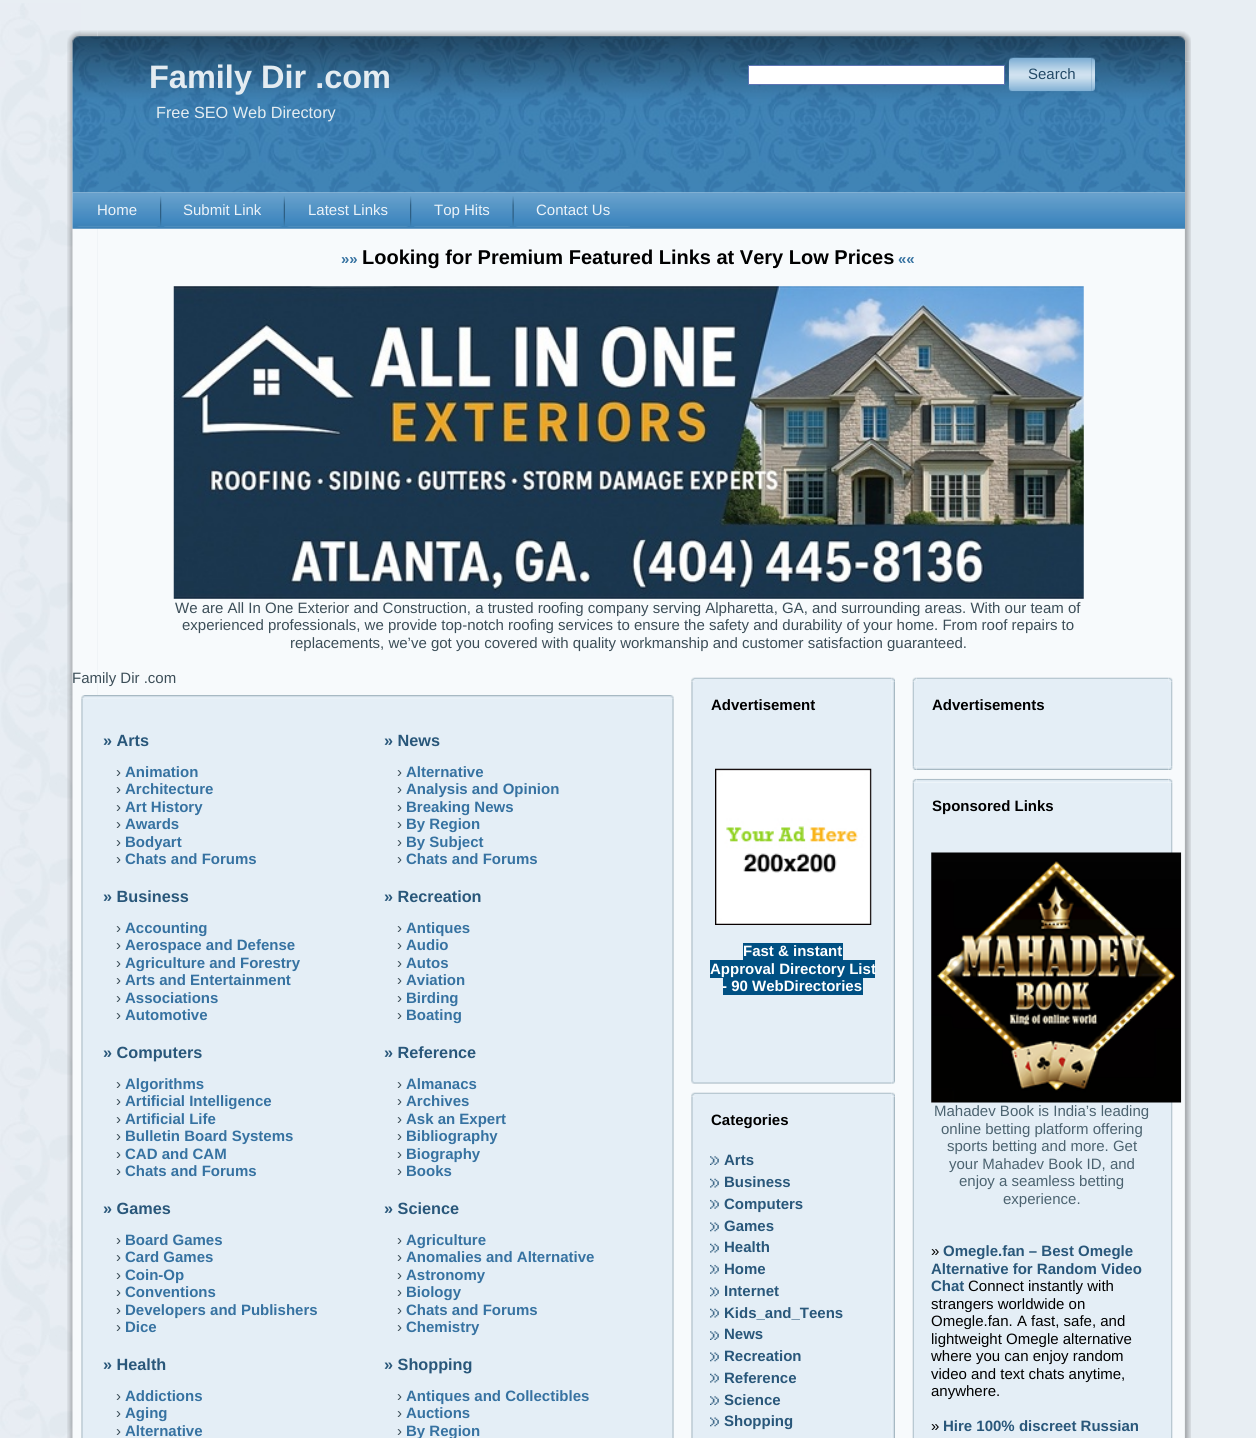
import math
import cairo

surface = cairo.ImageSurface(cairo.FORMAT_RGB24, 1256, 1438)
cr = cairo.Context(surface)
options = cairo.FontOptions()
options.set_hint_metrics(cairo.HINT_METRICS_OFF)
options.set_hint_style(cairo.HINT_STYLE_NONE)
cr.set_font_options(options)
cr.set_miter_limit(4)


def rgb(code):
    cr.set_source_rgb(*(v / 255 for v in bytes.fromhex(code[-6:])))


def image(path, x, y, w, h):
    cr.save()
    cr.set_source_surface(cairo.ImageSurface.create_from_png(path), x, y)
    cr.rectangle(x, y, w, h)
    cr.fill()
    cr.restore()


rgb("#e8eef3")
cr.paint()
image("img/1.png", 0, 3, 81, 1435)
image("img/2.png", 67, 30, 31, 32)
image("img/3.png", 97, 30, 1063, 7)
image("img/4.png", 1160, 30, 31, 32)
image("img/5.png", 67, 61, 31, 1377)
image("img/6.png", 1160, 61, 31, 1377)
rgb("#f7fafc")
cr.rectangle(98, 192, 1062, 1246)
cr.fill()
image("img/7.png", 72, 36, 1113, 157)
image("img/8.png", 79, 43, 1098, 141)
rgb("#ffffff")
cr.rectangle(748.5, 65.5, 256, 19)
cr.fill_preserve()
rgb("#5e74b3")
cr.set_line_width(1)
cr.stroke()
image("img/9.png", 1008, 57, 84, 35)
image("img/10.png", 1091, 57, 4, 34)
image("img/11.png", 72, 192, 1113, 37)
image("img/12.png", 77, 226, 80, 1)
image("img/13.png", 156, 226, 2, 1)
image("img/14.png", 160, 196, 2, 30)
image("img/15.png", 164, 226, 116, 1)
image("img/16.png", 280, 226, 2, 1)
image("img/17.png", 283, 196, 2, 30)
image("img/18.png", 287, 226, 120, 1)
image("img/13.png", 406, 226, 2, 1)
image("img/14.png", 410, 196, 2, 30)
image("img/19.png", 414, 226, 95, 1)
rgb("#4788bc")
cr.rectangle(509, 226, 1, 1)
cr.fill()
image("img/20.png", 512, 196, 2, 30)
image("img/21.png", 516, 226, 113, 1)
cr.rectangle(629, 226, 1, 1)
cr.fill()
image("img/22.png", 173, 286, 911, 313)
image("img/23.png", 81, 695, 4, 4)
image("img/24.png", 85, 695, 585, 4)
image("img/25.png", 670, 695, 4, 4)
image("img/26.png", 81, 699, 4, 739)
rgb("#e4eef6")
cr.rectangle(85, 699, 585, 739)
cr.fill()
image("img/27.png", 670, 699, 4, 739)
image("img/28.png", 691, 677, 4, 5)
image("img/29.png", 695, 677, 196, 4)
image("img/30.png", 891, 677, 4, 5)
image("img/31.png", 691, 681, 4, 399)
cr.rectangle(695, 681, 196, 399)
cr.fill()
image("img/32.png", 891, 681, 4, 399)
image("img/33.png", 715, 768, 157, 157)
for x, y, w, h, color in [
    (743, 943, 100, 17, "#005083"),
    (710, 960, 165, 18, "#005083"),
    (723, 978, 140, 17, "#005083"),
]:
    rgb(color)
    cr.rectangle(x, y, w, h)
    cr.fill()
image("img/34.png", 691, 1080, 4, 4)
image("img/35.png", 695, 1080, 196, 4)
image("img/36.png", 891, 1080, 4, 4)
image("img/28.png", 691, 1092, 4, 5)
image("img/29.png", 695, 1092, 196, 4)
image("img/30.png", 891, 1092, 4, 5)
image("img/37.png", 691, 1096, 4, 342)
rgb("#e4eef6")
cr.rectangle(695, 1096, 196, 342)
cr.fill()
image("img/38.png", 891, 1096, 4, 342)
image("img/39.png", 710, 1156, 9, 9)
image("img/40.png", 710, 1178, 9, 10)
image("img/41.png", 710, 1199, 9, 10)
image("img/42.png", 710, 1222, 9, 10)
image("img/40.png", 710, 1243, 9, 10)
image("img/41.png", 710, 1264, 9, 10)
image("img/42.png", 710, 1287, 9, 10)
image("img/40.png", 710, 1308, 9, 10)
image("img/39.png", 710, 1331, 9, 9)
image("img/42.png", 710, 1352, 9, 10)
image("img/40.png", 710, 1373, 9, 10)
image("img/39.png", 710, 1396, 9, 9)
image("img/42.png", 710, 1417, 9, 10)
image("img/43.png", 912, 677, 5, 5)
image("img/45.png", 1168, 677, 5, 5)
image("img/44.png", 916, 677, 253, 4)
image("img/46.png", 912, 681, 4, 85)
cr.rectangle(916, 681, 253, 85)
cr.fill()
image("img/47.png", 1169, 681, 4, 85)
image("img/48.png", 912, 766, 5, 4)
image("img/50.png", 1168, 766, 5, 4)
image("img/49.png", 916, 766, 253, 4)
image("img/51.png", 912, 778, 5, 5)
image("img/53.png", 1168, 778, 5, 5)
image("img/52.png", 916, 778, 253, 5)
image("img/54.png", 912, 782, 5, 656)
image("img/55.png", 1168, 782, 5, 656)
cr.rectangle(916, 783, 253, 655)
cr.fill()
image("img/56.png", 931, 852, 251, 251)
cr.select_font_face("Liberation Sans", cairo.FONT_SLANT_NORMAL, cairo.FONT_WEIGHT_BOLD)
cr.set_font_size(32.5)
rgb("#e4ecf1")
cr.move_to(149, 88)
cr.show_text("Family Dir .com")
cr.select_font_face("Liberation Sans")
cr.set_font_size(16.25)
cr.move_to(156, 118)
cr.show_text("Free SEO Web Directory")
cr.set_font_size(15)
rgb("#224967")
cr.move_to(1028, 79)
cr.show_text("Search")
rgb("#ecf3f9")
for x, y, s in [
    (97, 215, "Home"),
    (183, 215, "Submit Link"),
    (308, 215, "Latest Links"),
    (434, 215, "Top Hits"),
    (536, 215, "Contact Us"),
]:
    cr.move_to(x, y)
    cr.show_text(s)
cr.select_font_face("Liberation Sans", cairo.FONT_SLANT_NORMAL, cairo.FONT_WEIGHT_BOLD)
rgb("#3672a1")
cr.move_to(341, 264)
cr.show_text("»»")
cr.set_font_size(20)
rgb("#000000")
cr.move_to(362, 264)
cr.show_text("Looking for Premium Featured Links at Very Low Prices")
cr.set_font_size(15)
rgb("#3672a1")
cr.move_to(898, 264)
cr.show_text("««")
cr.select_font_face("Liberation Sans")
rgb("#3c4e58")
for x, y, s in [
    (175, 613, "We are All In One Exterior and Construction, a trusted roofing company serving Alpharetta, GA, and surrounding areas. With our team of"),
    (182, 630, "experienced professionals, we provide top-notch roofing services to ensure the safety and durability of your home. From roof repairs to"),
    (290, 648, "replacements, we’ve got you covered with quality workmanship and customer satisfaction guaranteed."),
    (72, 683, "Family Dir .com"),
]:
    cr.move_to(x, y)
    cr.show_text(s)
cr.select_font_face("Liberation Sans", cairo.FONT_SLANT_NORMAL, cairo.FONT_WEIGHT_BOLD)
cr.set_font_size(16.25)
rgb("#29577a")
cr.move_to(103, 746)
cr.show_text("» Arts")
cr.select_font_face("Liberation Sans")
cr.set_font_size(15)
rgb("#3c4e58")
cr.move_to(116, 777)
cr.show_text("›")
cr.select_font_face("Liberation Sans", cairo.FONT_SLANT_NORMAL, cairo.FONT_WEIGHT_BOLD)
rgb("#3672a1")
cr.move_to(125, 777)
cr.show_text("Animation")
cr.select_font_face("Liberation Sans")
rgb("#3c4e58")
cr.move_to(116, 794)
cr.show_text("›")
cr.select_font_face("Liberation Sans", cairo.FONT_SLANT_NORMAL, cairo.FONT_WEIGHT_BOLD)
rgb("#3672a1")
cr.move_to(125, 794)
cr.show_text("Architecture")
cr.select_font_face("Liberation Sans")
rgb("#3c4e58")
cr.move_to(116, 812)
cr.show_text("›")
cr.select_font_face("Liberation Sans", cairo.FONT_SLANT_NORMAL, cairo.FONT_WEIGHT_BOLD)
rgb("#3672a1")
cr.move_to(125, 812)
cr.show_text("Art History")
cr.select_font_face("Liberation Sans")
rgb("#3c4e58")
cr.move_to(116, 829)
cr.show_text("›")
cr.select_font_face("Liberation Sans", cairo.FONT_SLANT_NORMAL, cairo.FONT_WEIGHT_BOLD)
rgb("#3672a1")
cr.move_to(125, 829)
cr.show_text("Awards")
cr.select_font_face("Liberation Sans")
rgb("#3c4e58")
cr.move_to(116, 847)
cr.show_text("›")
cr.select_font_face("Liberation Sans", cairo.FONT_SLANT_NORMAL, cairo.FONT_WEIGHT_BOLD)
rgb("#3672a1")
cr.move_to(125, 847)
cr.show_text("Bodyart")
cr.select_font_face("Liberation Sans")
rgb("#3c4e58")
cr.move_to(116, 864)
cr.show_text("›")
cr.select_font_face("Liberation Sans", cairo.FONT_SLANT_NORMAL, cairo.FONT_WEIGHT_BOLD)
rgb("#3672a1")
cr.move_to(125, 864)
cr.show_text("Chats and Forums")
cr.set_font_size(16.25)
rgb("#29577a")
cr.move_to(103, 902)
cr.show_text("» Business")
cr.select_font_face("Liberation Sans")
cr.set_font_size(15)
rgb("#3c4e58")
cr.move_to(116, 933)
cr.show_text("›")
cr.select_font_face("Liberation Sans", cairo.FONT_SLANT_NORMAL, cairo.FONT_WEIGHT_BOLD)
rgb("#3672a1")
cr.move_to(125, 933)
cr.show_text("Accounting")
cr.select_font_face("Liberation Sans")
rgb("#3c4e58")
cr.move_to(116, 950)
cr.show_text("›")
cr.select_font_face("Liberation Sans", cairo.FONT_SLANT_NORMAL, cairo.FONT_WEIGHT_BOLD)
rgb("#3672a1")
cr.move_to(125, 950)
cr.show_text("Aerospace and Defense")
cr.select_font_face("Liberation Sans")
rgb("#3c4e58")
cr.move_to(116, 968)
cr.show_text("›")
cr.select_font_face("Liberation Sans", cairo.FONT_SLANT_NORMAL, cairo.FONT_WEIGHT_BOLD)
rgb("#3672a1")
cr.move_to(125, 968)
cr.show_text("Agriculture and Forestry")
cr.select_font_face("Liberation Sans")
rgb("#3c4e58")
cr.move_to(116, 985)
cr.show_text("›")
cr.select_font_face("Liberation Sans", cairo.FONT_SLANT_NORMAL, cairo.FONT_WEIGHT_BOLD)
rgb("#3672a1")
cr.move_to(125, 985)
cr.show_text("Arts and Entertainment")
cr.select_font_face("Liberation Sans")
rgb("#3c4e58")
cr.move_to(116, 1003)
cr.show_text("›")
cr.select_font_face("Liberation Sans", cairo.FONT_SLANT_NORMAL, cairo.FONT_WEIGHT_BOLD)
rgb("#3672a1")
cr.move_to(125, 1003)
cr.show_text("Associations")
cr.select_font_face("Liberation Sans")
rgb("#3c4e58")
cr.move_to(116, 1020)
cr.show_text("›")
cr.select_font_face("Liberation Sans", cairo.FONT_SLANT_NORMAL, cairo.FONT_WEIGHT_BOLD)
rgb("#3672a1")
cr.move_to(125, 1020)
cr.show_text("Automotive")
cr.set_font_size(16.25)
rgb("#29577a")
cr.move_to(103, 1058)
cr.show_text("» Computers")
cr.select_font_face("Liberation Sans")
cr.set_font_size(15)
rgb("#3c4e58")
cr.move_to(116, 1089)
cr.show_text("›")
cr.select_font_face("Liberation Sans", cairo.FONT_SLANT_NORMAL, cairo.FONT_WEIGHT_BOLD)
rgb("#3672a1")
cr.move_to(125, 1089)
cr.show_text("Algorithms")
cr.select_font_face("Liberation Sans")
rgb("#3c4e58")
cr.move_to(116, 1106)
cr.show_text("›")
cr.select_font_face("Liberation Sans", cairo.FONT_SLANT_NORMAL, cairo.FONT_WEIGHT_BOLD)
rgb("#3672a1")
cr.move_to(125, 1106)
cr.show_text("Artificial Intelligence")
cr.select_font_face("Liberation Sans")
rgb("#3c4e58")
cr.move_to(116, 1124)
cr.show_text("›")
cr.select_font_face("Liberation Sans", cairo.FONT_SLANT_NORMAL, cairo.FONT_WEIGHT_BOLD)
rgb("#3672a1")
cr.move_to(125, 1124)
cr.show_text("Artificial Life")
cr.select_font_face("Liberation Sans")
rgb("#3c4e58")
cr.move_to(116, 1141)
cr.show_text("›")
cr.select_font_face("Liberation Sans", cairo.FONT_SLANT_NORMAL, cairo.FONT_WEIGHT_BOLD)
rgb("#3672a1")
cr.move_to(125, 1141)
cr.show_text("Bulletin Board Systems")
cr.select_font_face("Liberation Sans")
rgb("#3c4e58")
cr.move_to(116, 1159)
cr.show_text("›")
cr.select_font_face("Liberation Sans", cairo.FONT_SLANT_NORMAL, cairo.FONT_WEIGHT_BOLD)
rgb("#3672a1")
cr.move_to(125, 1159)
cr.show_text("CAD and CAM")
cr.select_font_face("Liberation Sans")
rgb("#3c4e58")
cr.move_to(116, 1176)
cr.show_text("›")
cr.select_font_face("Liberation Sans", cairo.FONT_SLANT_NORMAL, cairo.FONT_WEIGHT_BOLD)
rgb("#3672a1")
cr.move_to(125, 1176)
cr.show_text("Chats and Forums")
cr.set_font_size(16.25)
rgb("#29577a")
cr.move_to(103, 1214)
cr.show_text("» Games")
cr.select_font_face("Liberation Sans")
cr.set_font_size(15)
rgb("#3c4e58")
cr.move_to(116, 1245)
cr.show_text("›")
cr.select_font_face("Liberation Sans", cairo.FONT_SLANT_NORMAL, cairo.FONT_WEIGHT_BOLD)
rgb("#3672a1")
cr.move_to(125, 1245)
cr.show_text("Board Games")
cr.select_font_face("Liberation Sans")
rgb("#3c4e58")
cr.move_to(116, 1262)
cr.show_text("›")
cr.select_font_face("Liberation Sans", cairo.FONT_SLANT_NORMAL, cairo.FONT_WEIGHT_BOLD)
rgb("#3672a1")
cr.move_to(125, 1262)
cr.show_text("Card Games")
cr.select_font_face("Liberation Sans")
rgb("#3c4e58")
cr.move_to(116, 1280)
cr.show_text("›")
cr.select_font_face("Liberation Sans", cairo.FONT_SLANT_NORMAL, cairo.FONT_WEIGHT_BOLD)
rgb("#3672a1")
cr.move_to(125, 1280)
cr.show_text("Coin-Op")
cr.select_font_face("Liberation Sans")
rgb("#3c4e58")
cr.move_to(116, 1297)
cr.show_text("›")
cr.select_font_face("Liberation Sans", cairo.FONT_SLANT_NORMAL, cairo.FONT_WEIGHT_BOLD)
rgb("#3672a1")
cr.move_to(125, 1297)
cr.show_text("Conventions")
cr.select_font_face("Liberation Sans")
rgb("#3c4e58")
cr.move_to(116, 1315)
cr.show_text("›")
cr.select_font_face("Liberation Sans", cairo.FONT_SLANT_NORMAL, cairo.FONT_WEIGHT_BOLD)
rgb("#3672a1")
cr.move_to(125, 1315)
cr.show_text("Developers and Publishers")
cr.select_font_face("Liberation Sans")
rgb("#3c4e58")
cr.move_to(116, 1332)
cr.show_text("›")
cr.select_font_face("Liberation Sans", cairo.FONT_SLANT_NORMAL, cairo.FONT_WEIGHT_BOLD)
rgb("#3672a1")
cr.move_to(125, 1332)
cr.show_text("Dice")
cr.set_font_size(16.25)
rgb("#29577a")
cr.move_to(103, 1370)
cr.show_text("» Health")
cr.select_font_face("Liberation Sans")
cr.set_font_size(15)
rgb("#3c4e58")
cr.move_to(116, 1401)
cr.show_text("›")
cr.select_font_face("Liberation Sans", cairo.FONT_SLANT_NORMAL, cairo.FONT_WEIGHT_BOLD)
rgb("#3672a1")
cr.move_to(125, 1401)
cr.show_text("Addictions")
cr.select_font_face("Liberation Sans")
rgb("#3c4e58")
cr.move_to(116, 1418)
cr.show_text("›")
cr.select_font_face("Liberation Sans", cairo.FONT_SLANT_NORMAL, cairo.FONT_WEIGHT_BOLD)
rgb("#3672a1")
cr.move_to(125, 1418)
cr.show_text("Aging")
cr.select_font_face("Liberation Sans")
rgb("#3c4e58")
cr.move_to(116, 1436)
cr.show_text("›")
cr.select_font_face("Liberation Sans", cairo.FONT_SLANT_NORMAL, cairo.FONT_WEIGHT_BOLD)
rgb("#3672a1")
cr.move_to(125, 1436)
cr.show_text("Alternative")
cr.set_font_size(16.25)
rgb("#29577a")
cr.move_to(384, 746)
cr.show_text("» News")
cr.select_font_face("Liberation Sans")
cr.set_font_size(15)
rgb("#3c4e58")
cr.move_to(397, 777)
cr.show_text("›")
cr.select_font_face("Liberation Sans", cairo.FONT_SLANT_NORMAL, cairo.FONT_WEIGHT_BOLD)
rgb("#3672a1")
cr.move_to(406, 777)
cr.show_text("Alternative")
cr.select_font_face("Liberation Sans")
rgb("#3c4e58")
cr.move_to(397, 794)
cr.show_text("›")
cr.select_font_face("Liberation Sans", cairo.FONT_SLANT_NORMAL, cairo.FONT_WEIGHT_BOLD)
rgb("#3672a1")
cr.move_to(406, 794)
cr.show_text("Analysis and Opinion")
cr.select_font_face("Liberation Sans")
rgb("#3c4e58")
cr.move_to(397, 812)
cr.show_text("›")
cr.select_font_face("Liberation Sans", cairo.FONT_SLANT_NORMAL, cairo.FONT_WEIGHT_BOLD)
rgb("#3672a1")
cr.move_to(406, 812)
cr.show_text("Breaking News")
cr.select_font_face("Liberation Sans")
rgb("#3c4e58")
cr.move_to(397, 829)
cr.show_text("›")
cr.select_font_face("Liberation Sans", cairo.FONT_SLANT_NORMAL, cairo.FONT_WEIGHT_BOLD)
rgb("#3672a1")
cr.move_to(406, 829)
cr.show_text("By Region")
cr.select_font_face("Liberation Sans")
rgb("#3c4e58")
cr.move_to(397, 847)
cr.show_text("›")
cr.select_font_face("Liberation Sans", cairo.FONT_SLANT_NORMAL, cairo.FONT_WEIGHT_BOLD)
rgb("#3672a1")
cr.move_to(406, 847)
cr.show_text("By Subject")
cr.select_font_face("Liberation Sans")
rgb("#3c4e58")
cr.move_to(397, 864)
cr.show_text("›")
cr.select_font_face("Liberation Sans", cairo.FONT_SLANT_NORMAL, cairo.FONT_WEIGHT_BOLD)
rgb("#3672a1")
cr.move_to(406, 864)
cr.show_text("Chats and Forums")
cr.set_font_size(16.25)
rgb("#29577a")
cr.move_to(384, 902)
cr.show_text("» Recreation")
cr.select_font_face("Liberation Sans")
cr.set_font_size(15)
rgb("#3c4e58")
cr.move_to(397, 933)
cr.show_text("›")
cr.select_font_face("Liberation Sans", cairo.FONT_SLANT_NORMAL, cairo.FONT_WEIGHT_BOLD)
rgb("#3672a1")
cr.move_to(406, 933)
cr.show_text("Antiques")
cr.select_font_face("Liberation Sans")
rgb("#3c4e58")
cr.move_to(397, 950)
cr.show_text("›")
cr.select_font_face("Liberation Sans", cairo.FONT_SLANT_NORMAL, cairo.FONT_WEIGHT_BOLD)
rgb("#3672a1")
cr.move_to(406, 950)
cr.show_text("Audio")
cr.select_font_face("Liberation Sans")
rgb("#3c4e58")
cr.move_to(397, 968)
cr.show_text("›")
cr.select_font_face("Liberation Sans", cairo.FONT_SLANT_NORMAL, cairo.FONT_WEIGHT_BOLD)
rgb("#3672a1")
cr.move_to(406, 968)
cr.show_text("Autos")
cr.select_font_face("Liberation Sans")
rgb("#3c4e58")
cr.move_to(397, 985)
cr.show_text("›")
cr.select_font_face("Liberation Sans", cairo.FONT_SLANT_NORMAL, cairo.FONT_WEIGHT_BOLD)
rgb("#3672a1")
cr.move_to(406, 985)
cr.show_text("Aviation")
cr.select_font_face("Liberation Sans")
rgb("#3c4e58")
cr.move_to(397, 1003)
cr.show_text("›")
cr.select_font_face("Liberation Sans", cairo.FONT_SLANT_NORMAL, cairo.FONT_WEIGHT_BOLD)
rgb("#3672a1")
cr.move_to(406, 1003)
cr.show_text("Birding")
cr.select_font_face("Liberation Sans")
rgb("#3c4e58")
cr.move_to(397, 1020)
cr.show_text("›")
cr.select_font_face("Liberation Sans", cairo.FONT_SLANT_NORMAL, cairo.FONT_WEIGHT_BOLD)
rgb("#3672a1")
cr.move_to(406, 1020)
cr.show_text("Boating")
cr.set_font_size(16.25)
rgb("#29577a")
cr.move_to(384, 1058)
cr.show_text("» Reference")
cr.select_font_face("Liberation Sans")
cr.set_font_size(15)
rgb("#3c4e58")
cr.move_to(397, 1089)
cr.show_text("›")
cr.select_font_face("Liberation Sans", cairo.FONT_SLANT_NORMAL, cairo.FONT_WEIGHT_BOLD)
rgb("#3672a1")
cr.move_to(406, 1089)
cr.show_text("Almanacs")
cr.select_font_face("Liberation Sans")
rgb("#3c4e58")
cr.move_to(397, 1106)
cr.show_text("›")
cr.select_font_face("Liberation Sans", cairo.FONT_SLANT_NORMAL, cairo.FONT_WEIGHT_BOLD)
rgb("#3672a1")
cr.move_to(406, 1106)
cr.show_text("Archives")
cr.select_font_face("Liberation Sans")
rgb("#3c4e58")
cr.move_to(397, 1124)
cr.show_text("›")
cr.select_font_face("Liberation Sans", cairo.FONT_SLANT_NORMAL, cairo.FONT_WEIGHT_BOLD)
rgb("#3672a1")
cr.move_to(406, 1124)
cr.show_text("Ask an Expert")
cr.select_font_face("Liberation Sans")
rgb("#3c4e58")
cr.move_to(397, 1141)
cr.show_text("›")
cr.select_font_face("Liberation Sans", cairo.FONT_SLANT_NORMAL, cairo.FONT_WEIGHT_BOLD)
rgb("#3672a1")
cr.move_to(406, 1141)
cr.show_text("Bibliography")
cr.select_font_face("Liberation Sans")
rgb("#3c4e58")
cr.move_to(397, 1159)
cr.show_text("›")
cr.select_font_face("Liberation Sans", cairo.FONT_SLANT_NORMAL, cairo.FONT_WEIGHT_BOLD)
rgb("#3672a1")
cr.move_to(406, 1159)
cr.show_text("Biography")
cr.select_font_face("Liberation Sans")
rgb("#3c4e58")
cr.move_to(397, 1176)
cr.show_text("›")
cr.select_font_face("Liberation Sans", cairo.FONT_SLANT_NORMAL, cairo.FONT_WEIGHT_BOLD)
rgb("#3672a1")
cr.move_to(406, 1176)
cr.show_text("Books")
cr.set_font_size(16.25)
rgb("#29577a")
cr.move_to(384, 1214)
cr.show_text("» Science")
cr.select_font_face("Liberation Sans")
cr.set_font_size(15)
rgb("#3c4e58")
cr.move_to(397, 1245)
cr.show_text("›")
cr.select_font_face("Liberation Sans", cairo.FONT_SLANT_NORMAL, cairo.FONT_WEIGHT_BOLD)
rgb("#3672a1")
cr.move_to(406, 1245)
cr.show_text("Agriculture")
cr.select_font_face("Liberation Sans")
rgb("#3c4e58")
cr.move_to(397, 1262)
cr.show_text("›")
cr.select_font_face("Liberation Sans", cairo.FONT_SLANT_NORMAL, cairo.FONT_WEIGHT_BOLD)
rgb("#3672a1")
cr.move_to(406, 1262)
cr.show_text("Anomalies and Alternative")
cr.select_font_face("Liberation Sans")
rgb("#3c4e58")
cr.move_to(397, 1280)
cr.show_text("›")
cr.select_font_face("Liberation Sans", cairo.FONT_SLANT_NORMAL, cairo.FONT_WEIGHT_BOLD)
rgb("#3672a1")
cr.move_to(406, 1280)
cr.show_text("Astronomy")
cr.select_font_face("Liberation Sans")
rgb("#3c4e58")
cr.move_to(397, 1297)
cr.show_text("›")
cr.select_font_face("Liberation Sans", cairo.FONT_SLANT_NORMAL, cairo.FONT_WEIGHT_BOLD)
rgb("#3672a1")
cr.move_to(406, 1297)
cr.show_text("Biology")
cr.select_font_face("Liberation Sans")
rgb("#3c4e58")
cr.move_to(397, 1315)
cr.show_text("›")
cr.select_font_face("Liberation Sans", cairo.FONT_SLANT_NORMAL, cairo.FONT_WEIGHT_BOLD)
rgb("#3672a1")
cr.move_to(406, 1315)
cr.show_text("Chats and Forums")
cr.select_font_face("Liberation Sans")
rgb("#3c4e58")
cr.move_to(397, 1332)
cr.show_text("›")
cr.select_font_face("Liberation Sans", cairo.FONT_SLANT_NORMAL, cairo.FONT_WEIGHT_BOLD)
rgb("#3672a1")
cr.move_to(406, 1332)
cr.show_text("Chemistry")
cr.set_font_size(16.25)
rgb("#29577a")
cr.move_to(384, 1370)
cr.show_text("» Shopping")
cr.select_font_face("Liberation Sans")
cr.set_font_size(15)
rgb("#3c4e58")
cr.move_to(397, 1401)
cr.show_text("›")
cr.select_font_face("Liberation Sans", cairo.FONT_SLANT_NORMAL, cairo.FONT_WEIGHT_BOLD)
rgb("#3672a1")
cr.move_to(406, 1401)
cr.show_text("Antiques and Collectibles")
cr.select_font_face("Liberation Sans")
rgb("#3c4e58")
cr.move_to(397, 1418)
cr.show_text("›")
cr.select_font_face("Liberation Sans", cairo.FONT_SLANT_NORMAL, cairo.FONT_WEIGHT_BOLD)
rgb("#3672a1")
cr.move_to(406, 1418)
cr.show_text("Auctions")
cr.select_font_face("Liberation Sans")
rgb("#3c4e58")
cr.move_to(397, 1436)
cr.show_text("›")
cr.select_font_face("Liberation Sans", cairo.FONT_SLANT_NORMAL, cairo.FONT_WEIGHT_BOLD)
rgb("#3672a1")
cr.move_to(406, 1436)
cr.show_text("By Region")
rgb("#000000")
cr.move_to(711, 710)
cr.show_text("Advertisement")
rgb("#ffffff")
for x, y, s in [
    (743, 956, "Fast & instant"),
    (710, 974, "Approval Directory List"),
    (722, 991, "- 90 WebDirectories"),
]:
    cr.move_to(x, y)
    cr.show_text(s)
rgb("#000000")
cr.move_to(711, 1125)
cr.show_text("Categories")
rgb("#29577a")
for x, y, s in [
    (724, 1165, "Arts"),
    (724, 1187, "Business"),
    (724, 1209, "Computers"),
    (724, 1231, "Games"),
    (724, 1252, "Health"),
    (724, 1274, "Home"),
    (724, 1296, "Internet"),
    (724, 1318, "Kids_and_Teens"),
    (724, 1339, "News"),
    (724, 1361, "Recreation"),
    (724, 1383, "Reference"),
    (724, 1405, "Science"),
    (724, 1426, "Shopping"),
]:
    cr.move_to(x, y)
    cr.show_text(s)
rgb("#000000")
cr.move_to(932, 710)
cr.show_text("Advertisements")
cr.move_to(932, 811)
cr.show_text("Sponsored Links")
cr.select_font_face("Liberation Sans")
rgb("#4c6370")
for x, y, s in [
    (934, 1116, "Mahadev Book is India’s leading"),
    (941, 1134, "online betting platform offering"),
    (947, 1151, "sports betting and more. Get"),
    (949, 1169, "your Mahadev Book ID, and"),
    (959, 1186, "enjoy a seamless betting"),
    (1003, 1204, "experience."),
]:
    cr.move_to(x, y)
    cr.show_text(s)
rgb("#000000")
cr.move_to(931, 1256)
cr.show_text("»")
cr.select_font_face("Liberation Sans", cairo.FONT_SLANT_NORMAL, cairo.FONT_WEIGHT_BOLD)
rgb("#29577a")
for x, y, s in [
    (943, 1256, "Omegle.fan – Best Omegle"),
    (931, 1274, "Alternative for Random Video"),
    (931, 1291, "Chat"),
]:
    cr.move_to(x, y)
    cr.show_text(s)
cr.select_font_face("Liberation Sans")
rgb("#000000")
for x, y, s in [
    (968, 1291, "Connect instantly with"),
    (931, 1309, "strangers worldwide on"),
    (931, 1326, "Omegle.fan. A fast, safe, and"),
    (931, 1344, "lightweight Omegle alternative"),
    (931, 1361, "where you can enjoy random"),
    (931, 1379, "video and text chats anytime,"),
    (931, 1396, "anywhere."),
    (931, 1431, "»"),
]:
    cr.move_to(x, y)
    cr.show_text(s)
cr.select_font_face("Liberation Sans", cairo.FONT_SLANT_NORMAL, cairo.FONT_WEIGHT_BOLD)
rgb("#29577a")
cr.move_to(943, 1431)
cr.show_text("Hire 100% discreet Russian")
surface.write_to_png("page.png")
